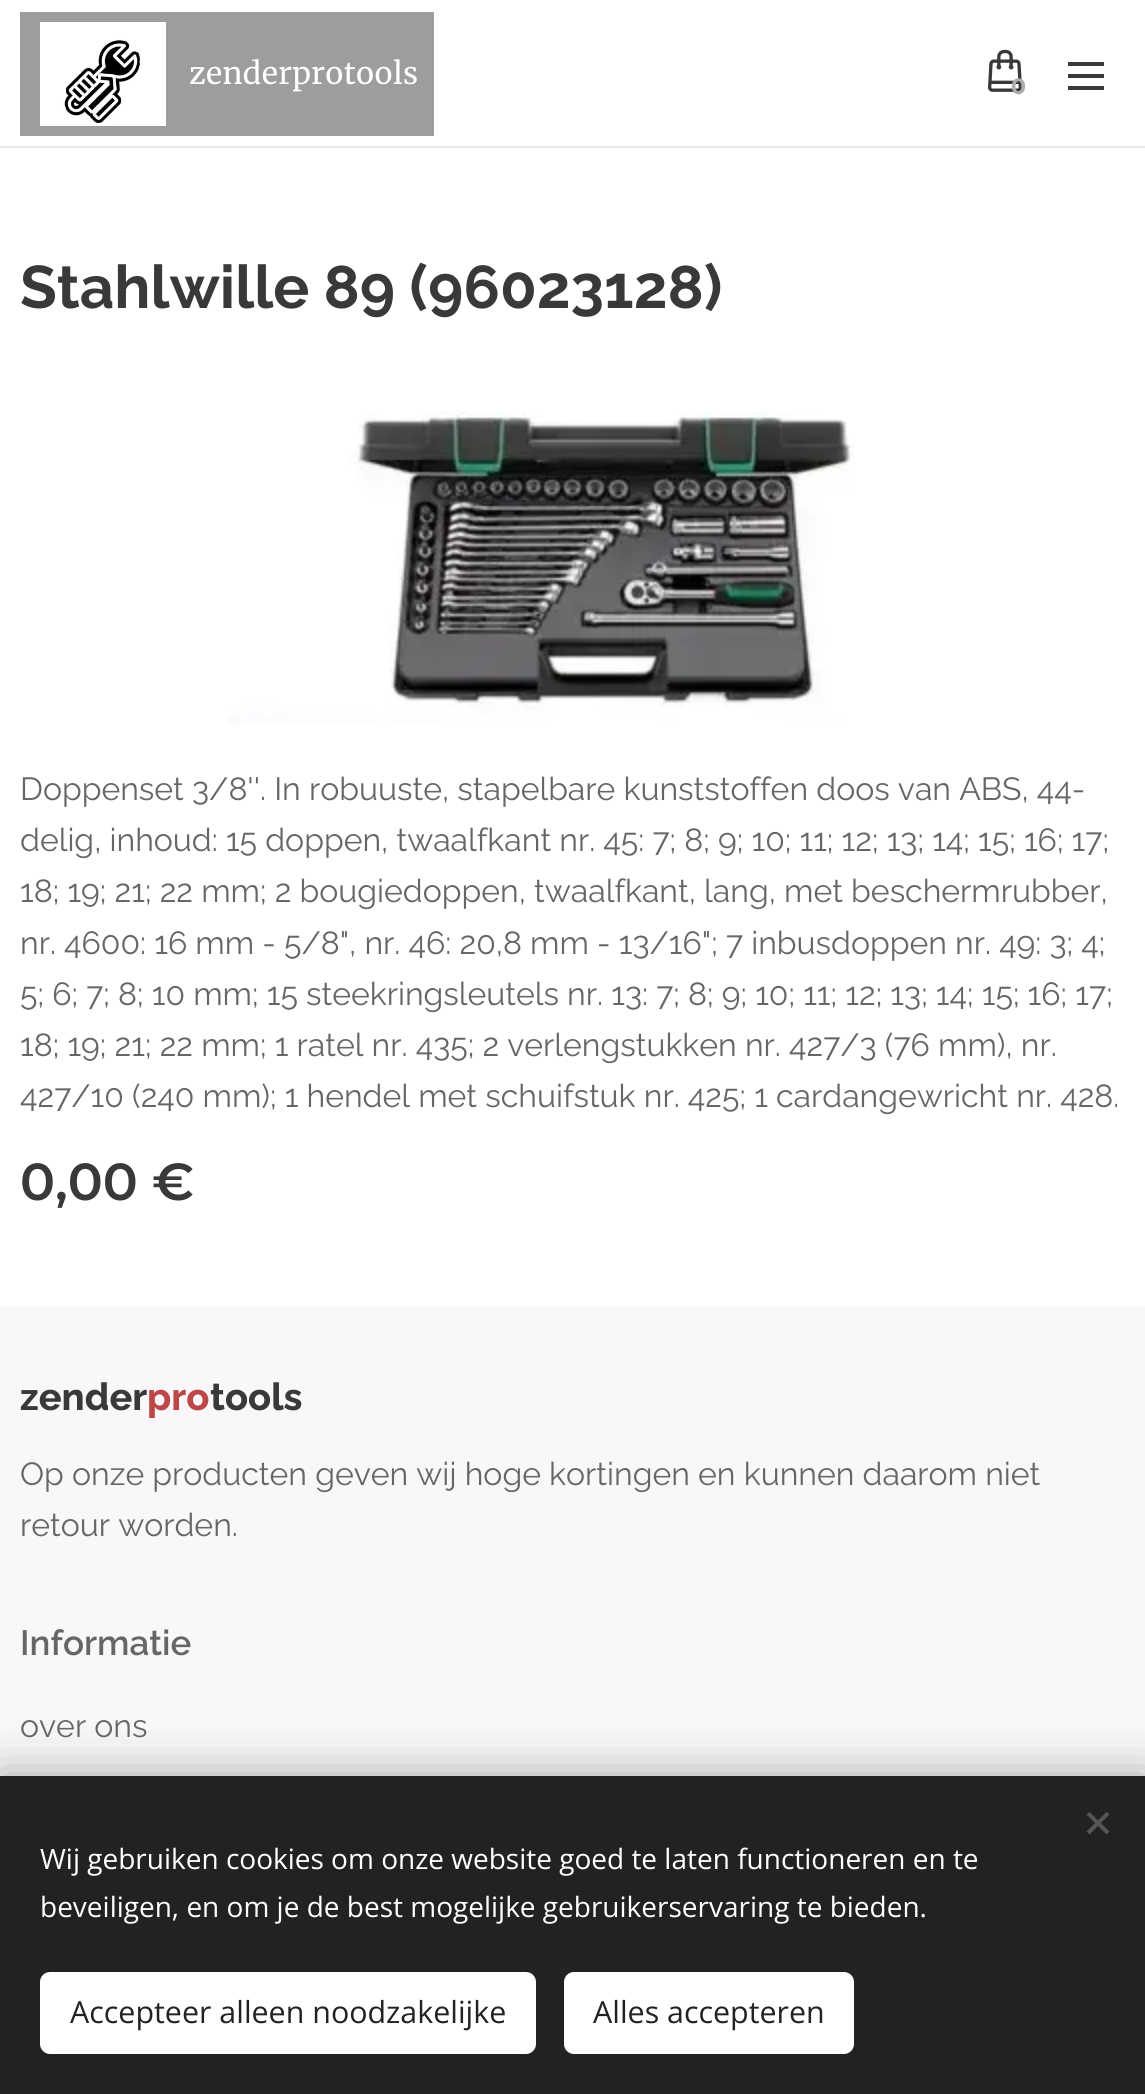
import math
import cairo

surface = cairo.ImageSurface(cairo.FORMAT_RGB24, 1145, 2094)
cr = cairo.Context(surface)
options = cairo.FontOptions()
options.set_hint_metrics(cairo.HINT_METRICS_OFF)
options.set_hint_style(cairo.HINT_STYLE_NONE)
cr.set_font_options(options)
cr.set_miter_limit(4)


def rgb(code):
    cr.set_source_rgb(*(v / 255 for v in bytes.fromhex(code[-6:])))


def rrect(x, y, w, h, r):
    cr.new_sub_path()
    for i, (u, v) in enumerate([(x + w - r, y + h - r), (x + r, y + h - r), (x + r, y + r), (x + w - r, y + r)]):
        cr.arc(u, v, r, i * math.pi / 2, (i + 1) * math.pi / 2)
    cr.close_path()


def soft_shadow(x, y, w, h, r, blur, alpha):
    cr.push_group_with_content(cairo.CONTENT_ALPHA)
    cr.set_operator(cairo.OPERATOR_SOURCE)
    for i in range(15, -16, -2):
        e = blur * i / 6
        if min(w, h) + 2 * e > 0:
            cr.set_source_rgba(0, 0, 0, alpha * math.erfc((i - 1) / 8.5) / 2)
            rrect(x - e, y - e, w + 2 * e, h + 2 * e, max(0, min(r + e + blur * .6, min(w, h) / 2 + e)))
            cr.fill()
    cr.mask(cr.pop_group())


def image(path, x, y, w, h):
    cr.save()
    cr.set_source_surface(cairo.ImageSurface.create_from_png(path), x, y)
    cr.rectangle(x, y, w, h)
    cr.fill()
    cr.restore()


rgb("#ffffff")
cr.paint()
rgb("#9d9d9d")
cr.rectangle(20, 12, 414, 124)
cr.fill()
image("img/1.png", 40, 22, 126, 104)
image("img/2.png", 988, 49, 34, 43)
for x, y, w, h, color in [
    (1068, 74, 36, 4, "#393939"),
    (1068, 62, 36, 4, "#393939"),
    (1068, 86, 36, 4, "#393939"),
    (0, 146, 1145, 2, "#e8e8e8"),
]:
    rgb(color)
    cr.rectangle(x, y, w, h)
    cr.fill()
image("img/3.png", 226, 411, 628, 313)
rgb("#f9f7fa")
cr.rectangle(0, 1306, 1145, 470)
cr.fill()
rgb("#000000")
soft_shadow(0, 1776, 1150, 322, 0, 25, 0.33)
rgb("#222222")
cr.rectangle(0, 1776, 1145, 318)
cr.fill()
rgb("#555555")
cr.new_path()
cr.move_to(1086.5, 1831.5)
cr.line_to(1106.5, 1812)
cr.line_to(1109.5, 1814.5)
cr.line_to(1089.5, 1834.5)
cr.close_path()
cr.fill()
cr.new_path()
cr.move_to(1089.5, 1812)
cr.line_to(1109.5, 1831.5)
cr.line_to(1106.5, 1834.5)
cr.line_to(1086.5, 1814.5)
cr.close_path()
cr.fill()
rgb("#ffffff")
rrect(40, 1972, 496, 82, 10)
cr.fill()
rrect(564, 1972, 290, 82, 10)
cr.fill()
cr.select_font_face("Merriweather")
cr.set_font_size(30.4)
cr.move_to(189, 84)
cr.show_text("zenderprotools")
cr.select_font_face("Montserrat", cairo.FONT_SLANT_NORMAL, cairo.FONT_WEIGHT_BOLD)
cr.set_font_size(22)
rgb("#acacac")
cr.move_to(1011, 94)
cr.show_text("0")
cr.select_font_face("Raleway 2", cairo.FONT_SLANT_NORMAL, cairo.FONT_WEIGHT_BOLD)
cr.set_font_size(60)
rgb("#393939")
cr.move_to(20, 308)
cr.show_text("Stahlwille 89 (96023128)")
cr.select_font_face("Raleway")
cr.set_font_size(32)
rgb("#666666")
for x, y, s in [
    (20, 800, "Doppenset 3/8''. In robuuste, stapelbare kunststoffen doos van ABS, 44-"),
    (20, 851, "delig, inhoud: 15 doppen, twaalfkant nr. 45: 7; 8; 9; 10; 11; 12; 13; 14; 15; 16; 17;"),
    (20, 902, "18; 19; 21; 22 mm; 2 bougiedoppen, twaalfkant, lang, met beschermrubber,"),
    (20, 954, "nr. 4600: 16 mm - 5/8\", nr. 46: 20,8 mm - 13/16\"; 7 inbusdoppen nr. 49: 3; 4;"),
    (20, 1005, "5; 6; 7; 8; 10 mm; 15 steekringsleutels nr. 13: 7; 8; 9; 10; 11; 12; 13; 14; 15; 16; 17;"),
    (20, 1056, "18; 19; 21; 22 mm; 1 ratel nr. 435; 2 verlengstukken nr. 427/3 (76 mm), nr."),
    (20, 1107, "427/10 (240 mm); 1 hendel met schuifstuk nr. 425; 1 cardangewricht nr. 428."),
]:
    cr.move_to(x, y)
    cr.show_text(s)
cr.select_font_face("Montserrat SemiBold")
cr.set_font_size(52)
rgb("#393939")
cr.move_to(20, 1200)
cr.show_text("0,00 €")
cr.select_font_face("Raleway", cairo.FONT_SLANT_NORMAL, cairo.FONT_WEIGHT_BOLD)
cr.set_font_size(38)
cr.move_to(20, 1410)
cr.show_text("zender")
rgb("#bb4747")
cr.move_to(147, 1410)
cr.show_text("pro")
rgb("#393939")
cr.move_to(210, 1410)
cr.show_text("tools")
cr.select_font_face("Raleway")
cr.set_font_size(32)
rgb("#666666")
cr.move_to(20, 1485)
cr.show_text("Op onze producten geven wij hoge kortingen en kunnen daarom niet")
cr.move_to(20, 1536)
cr.show_text("retour worden.")
cr.select_font_face("Raleway SemiBold")
cr.set_font_size(35)
cr.move_to(20, 1655)
cr.show_text("Informatie")
cr.select_font_face("Raleway")
cr.set_font_size(32)
cr.move_to(20, 1737)
cr.show_text("over ons")
cr.select_font_face("Open Sans")
cr.set_font_size(28)
rgb("#ffffff")
cr.move_to(40, 1869)
cr.show_text("Wij gebruiken cookies om onze website goed te laten functioneren en te")
cr.move_to(40, 1917)
cr.show_text("beveiligen, en om je de best mogelijke gebruikerservaring te bieden.")
cr.set_font_size(30.4)
rgb("#222222")
cr.move_to(70, 2023)
cr.show_text("Accepteer alleen noodzakelijke")
cr.move_to(593, 2023)
cr.show_text("Alles accepteren")
surface.write_to_png("page.png")
